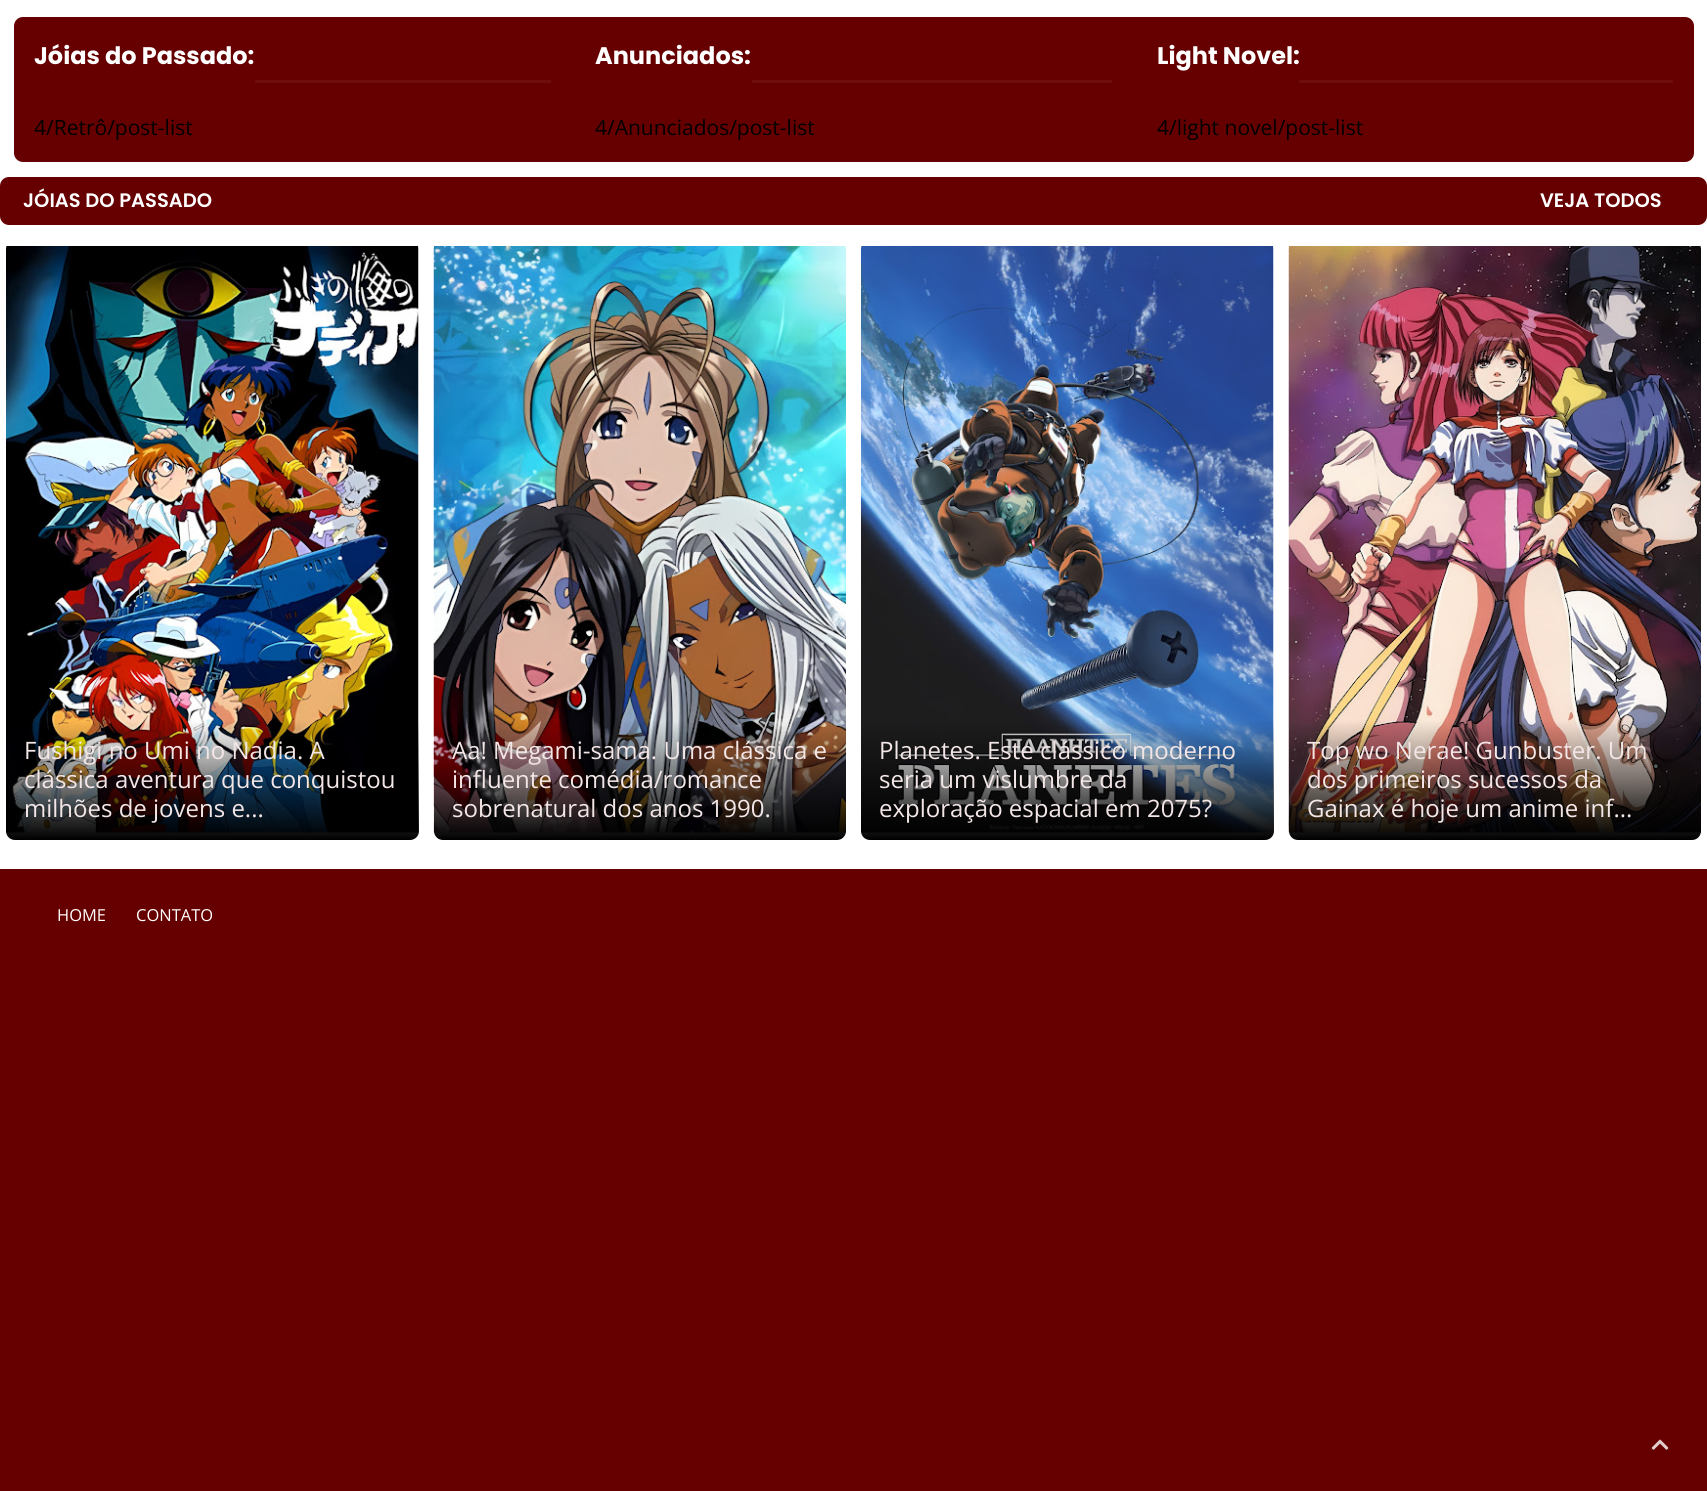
import math
import cairo

surface = cairo.ImageSurface(cairo.FORMAT_RGB24, 1707, 1491)
cr = cairo.Context(surface)
options = cairo.FontOptions()
options.set_hint_metrics(cairo.HINT_METRICS_OFF)
options.set_hint_style(cairo.HINT_STYLE_NONE)
cr.set_font_options(options)
cr.set_miter_limit(4)


def rgb(code):
    cr.set_source_rgb(*(v / 255 for v in bytes.fromhex(code[-6:])))


def rrect(x, y, w, h, r):
    cr.new_sub_path()
    for i, (u, v) in enumerate([(x + w - r, y + h - r), (x + r, y + h - r), (x + r, y + r), (x + w - r, y + r)]):
        cr.arc(u, v, r, i * math.pi / 2, (i + 1) * math.pi / 2)
    cr.close_path()


def image(path, x, y, w, h):
    cr.save()
    cr.set_source_surface(cairo.ImageSurface.create_from_png(path), x, y)
    cr.rectangle(x, y, w, h)
    cr.fill()
    cr.restore()


rgb("#ffffff")
cr.paint()
rgb("#660000")
rrect(14, 17, 1680, 145, 9)
cr.fill()
for x, y, w, h, color in [
    (255, 80, 296, 3, "#6e0d0d"),
    (752, 80, 360, 3, "#6e0d0d"),
    (1299, 80, 374, 3, "#6e0d0d"),
]:
    rgb(color)
    cr.rectangle(x, y, w, h)
    cr.fill()
rgb("#660000")
rrect(0, 177, 1707, 48, 9)
cr.fill()
image("img/1.png", 6, 246, 413, 587)
gradient = cairo.LinearGradient(212, 840, 212, 720)
gradient.add_color_stop_rgba(0, 0, 0, 0, 1)
gradient.add_color_stop_rgba(1, 0, 0, 0, 0)
cr.set_source(gradient)
cr.new_path()
cr.move_to(6, 720)
cr.line_to(419, 720)
cr.line_to(419, 831)
cr.curve_to(419, 836, 415, 840, 410, 840)
cr.line_to(15, 840)
cr.curve_to(10, 840, 6, 836, 6, 831)
cr.close_path()
cr.fill()
image("img/2.png", 433, 246, 413, 587)
gradient = cairo.LinearGradient(640, 840, 640, 720)
gradient.add_color_stop_rgba(0, 0, 0, 0, 1)
gradient.add_color_stop_rgba(1, 0, 0, 0, 0)
cr.set_source(gradient)
cr.new_path()
cr.move_to(434, 720)
cr.line_to(846, 720)
cr.line_to(846, 831)
cr.curve_to(846, 836, 842, 840, 837, 840)
cr.line_to(443, 840)
cr.curve_to(438, 840, 434, 836, 434, 831)
cr.close_path()
cr.fill()
image("img/3.png", 861, 246, 413, 587)
gradient = cairo.LinearGradient(1067, 840, 1067, 720)
gradient.add_color_stop_rgba(0, 0, 0, 0, 1)
gradient.add_color_stop_rgba(1, 0, 0, 0, 0)
cr.set_source(gradient)
cr.new_path()
cr.move_to(861, 720)
cr.line_to(1274, 720)
cr.line_to(1274, 831)
cr.curve_to(1274, 836, 1270, 840, 1265, 840)
cr.line_to(870, 840)
cr.curve_to(865, 840, 861, 836, 861, 831)
cr.close_path()
cr.fill()
image("img/4.png", 1288, 246, 413, 587)
gradient = cairo.LinearGradient(1495, 840, 1495, 720)
gradient.add_color_stop_rgba(0, 0, 0, 0, 1)
gradient.add_color_stop_rgba(1, 0, 0, 0, 0)
cr.set_source(gradient)
cr.new_path()
cr.move_to(1289, 720)
cr.line_to(1701, 720)
cr.line_to(1701, 831)
cr.curve_to(1701, 836, 1697, 840, 1692, 840)
cr.line_to(1298, 840)
cr.curve_to(1293, 840, 1289, 836, 1289, 831)
cr.close_path()
cr.fill()
rgb("#660000")
cr.rectangle(0, 869, 1707, 622)
cr.fill()
image("img/5.png", 1651, 1439, 18, 11)
cr.select_font_face("Poppins", cairo.FONT_SLANT_NORMAL, cairo.FONT_WEIGHT_BOLD)
cr.set_font_size(24)
rgb("#ffffff")
cr.move_to(34, 64)
cr.show_text("Jóias do Passado:")
cr.select_font_face("Open Sans")
cr.set_font_size(21)
rgb("#000000")
cr.move_to(34, 135)
cr.show_text("4/Retrô/post-list")
cr.select_font_face("Poppins", cairo.FONT_SLANT_NORMAL, cairo.FONT_WEIGHT_BOLD)
cr.set_font_size(24)
rgb("#ffffff")
cr.move_to(595, 64)
cr.show_text("Anunciados:")
cr.select_font_face("Open Sans")
cr.set_font_size(21)
rgb("#000000")
cr.move_to(595, 135)
cr.show_text("4/Anunciados/post-list")
cr.select_font_face("Poppins", cairo.FONT_SLANT_NORMAL, cairo.FONT_WEIGHT_BOLD)
cr.set_font_size(24)
rgb("#ffffff")
cr.move_to(1157, 64)
cr.show_text("Light Novel:")
cr.select_font_face("Open Sans")
cr.set_font_size(21)
rgb("#000000")
cr.move_to(1157, 135)
cr.show_text("4/light novel/post-list")
cr.select_font_face("Poppins SemiBold")
cr.set_font_size(19.5)
rgb("#ffffff")
cr.move_to(23, 207)
cr.show_text("JÓIAS DO PASSADO")
cr.move_to(1540, 207)
cr.show_text("VEJA TODOS")
cr.select_font_face("Open Sans")
cr.set_font_size(24)
rgb("#f3e6e6")
for x, y, s in [
    (24, 759, "Fushigi no Umi no Nadia. A"),
    (24, 788, "clássica aventura que conquistou"),
    (24, 817, "milhões de jovens e..."),
    (452, 759, "Aa! Megami-sama. Uma clássica e"),
    (452, 788, "influente comédia/romance"),
    (452, 817, "sobrenatural dos anos 1990."),
    (879, 759, "Planetes. Este clássico moderno"),
    (879, 788, "seria um vislumbre da"),
    (879, 817, "exploração espacial em 2075?"),
    (1307, 759, "Top wo Nerae! Gunbuster. Um"),
    (1307, 788, "dos primeiros sucessos da"),
    (1307, 817, "Gainax é hoje um anime inf..."),
]:
    cr.move_to(x, y)
    cr.show_text(s)
cr.set_font_size(16.5)
rgb("#ffffff")
cr.move_to(57, 921)
cr.show_text("HOME")
cr.move_to(136, 921)
cr.show_text("CONTATO")
surface.write_to_png("page.png")
